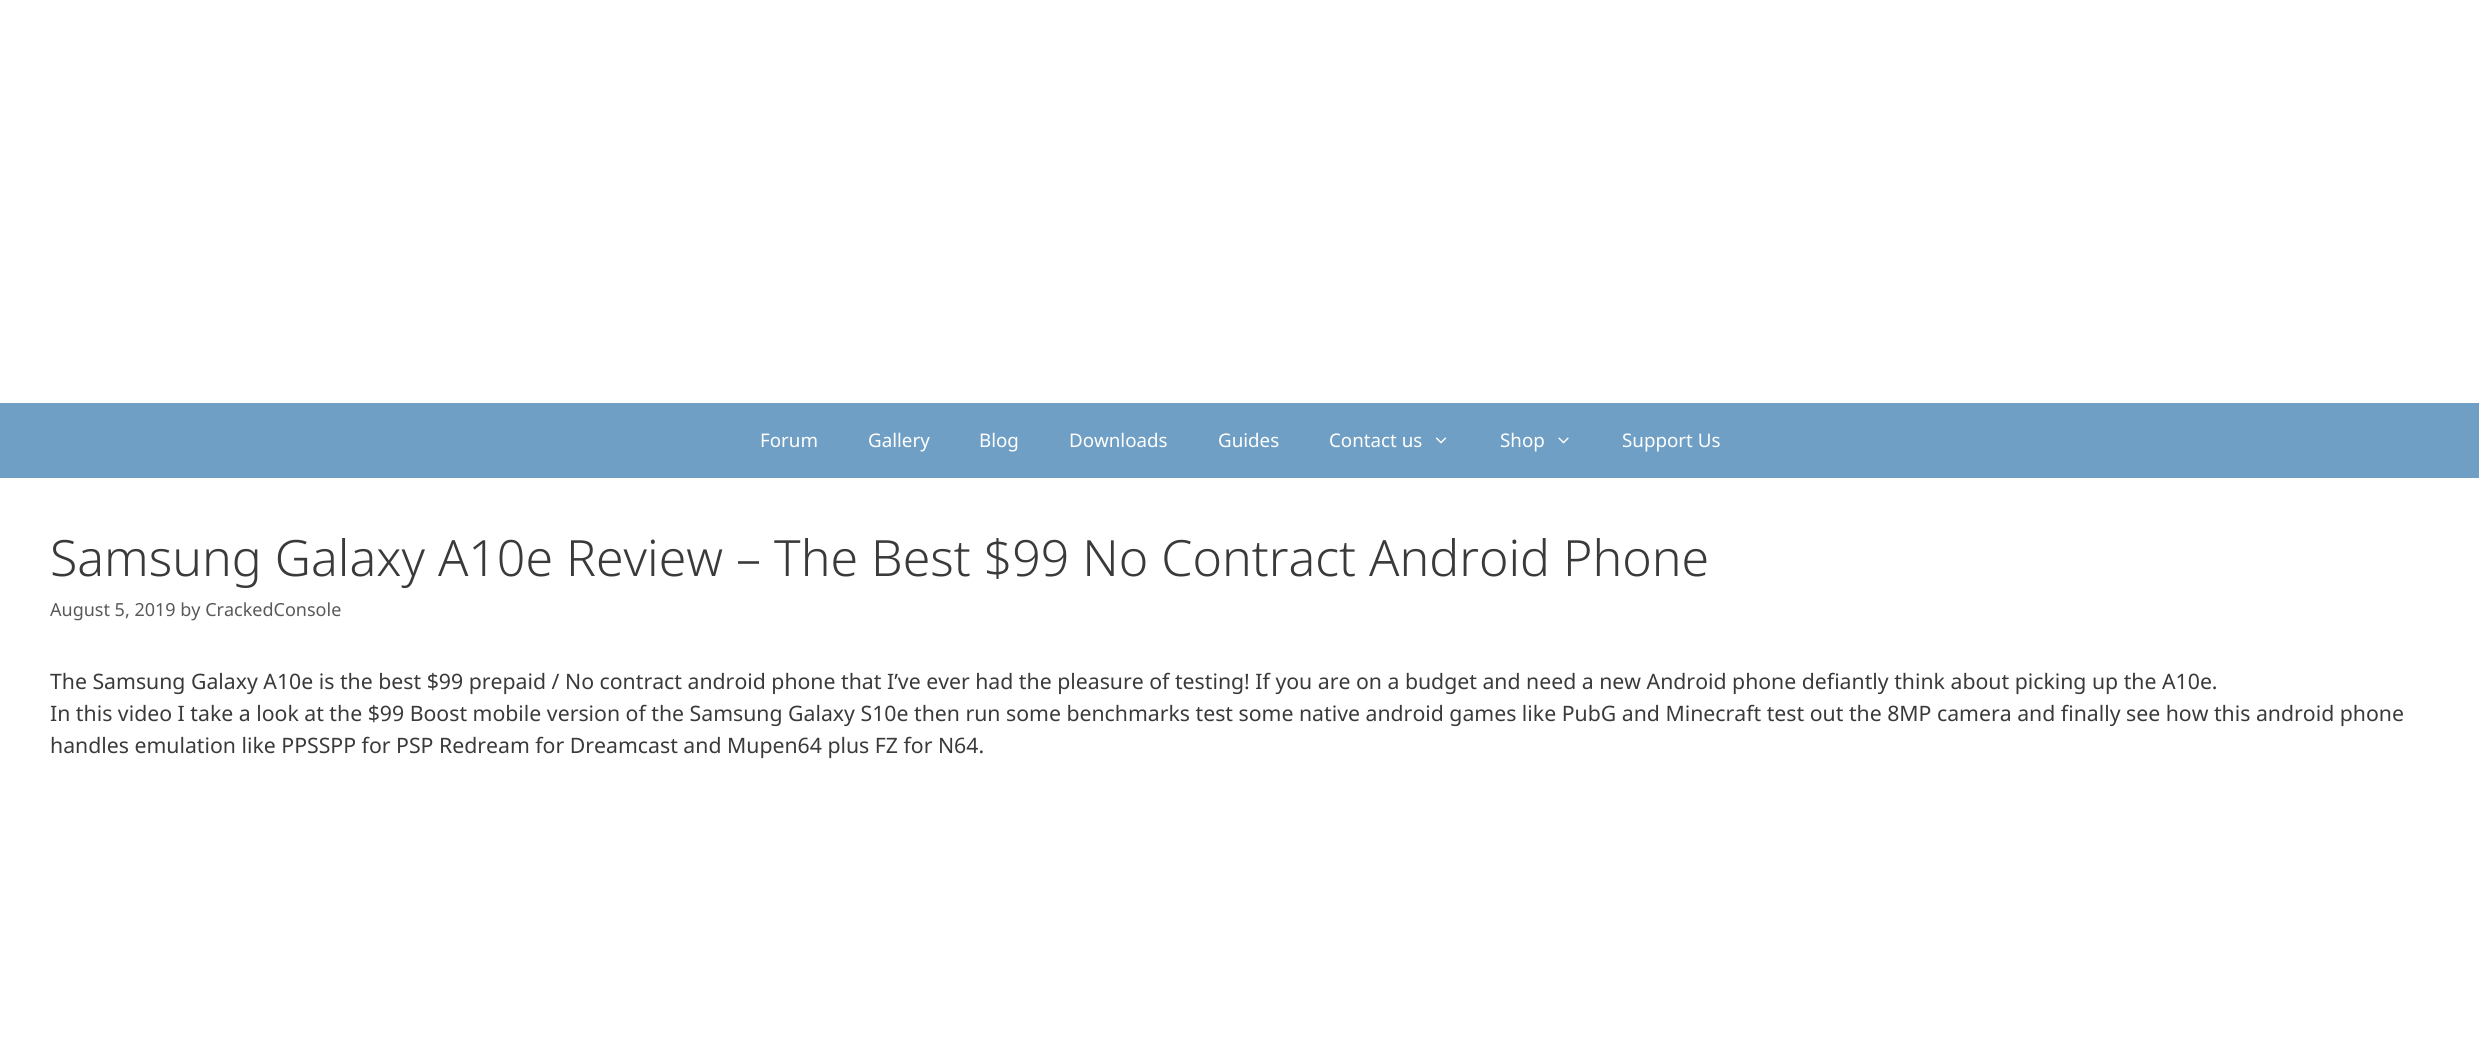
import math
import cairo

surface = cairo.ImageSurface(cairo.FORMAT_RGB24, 2479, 1058)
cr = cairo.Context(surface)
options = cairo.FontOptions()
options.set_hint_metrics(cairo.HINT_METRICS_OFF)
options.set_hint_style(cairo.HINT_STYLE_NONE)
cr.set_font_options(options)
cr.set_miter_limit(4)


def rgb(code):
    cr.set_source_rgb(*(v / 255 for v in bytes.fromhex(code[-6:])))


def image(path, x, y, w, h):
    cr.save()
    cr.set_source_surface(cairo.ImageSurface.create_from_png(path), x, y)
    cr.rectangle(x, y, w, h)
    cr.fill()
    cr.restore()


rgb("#6f9fc5")
cr.paint()
rgb("#ffffff")
cr.rectangle(0, 0, 2479, 403)
cr.fill()
image("img/1.png", 1435, 437, 12, 7)
image("img/2.png", 1558, 437, 11, 7)
cr.rectangle(0, 478, 2479, 580)
cr.fill()
cr.select_font_face("Noto Sans")
cr.set_font_size(18.75)
for x, y, s in [
    (760, 447, "Forum"),
    (868, 447, "Gallery"),
    (979, 447, "Blog"),
    (1069, 447, "Downloads"),
    (1218, 447, "Guides"),
    (1329, 447, "Contact us"),
    (1500, 447, "Shop"),
    (1622, 447, "Support Us"),
]:
    cr.move_to(x, y)
    cr.show_text(s)
cr.select_font_face("Noto Sans Light")
cr.set_font_size(50)
rgb("#3a3a3a")
cr.move_to(50, 576)
cr.show_text("Samsung Galaxy A10e Review – The Best $99 No Contract Android Phone")
cr.select_font_face("Noto Sans")
cr.set_font_size(18)
rgb("#595959")
cr.move_to(50, 616)
cr.show_text("August 5, 2019 by CrackedConsole")
cr.set_font_size(21.25)
rgb("#3a3a3a")
for x, y, s in [
    (50, 689, "The Samsung Galaxy A10e is the best $99 prepaid / No contract android phone that I’ve ever had the pleasure of testing! If you are on a budget and need a new Android phone defiantly think about picking up the A10e."),
    (50, 721, "In this video I take a look at the $99 Boost mobile version of the Samsung Galaxy S10e then run some benchmarks test some native android games like PubG and Minecraft test out the 8MP camera and finally see how this android phone"),
    (50, 753, "handles emulation like PPSSPP for PSP Redream for Dreamcast and Mupen64 plus FZ for N64."),
]:
    cr.move_to(x, y)
    cr.show_text(s)
surface.write_to_png("page.png")
